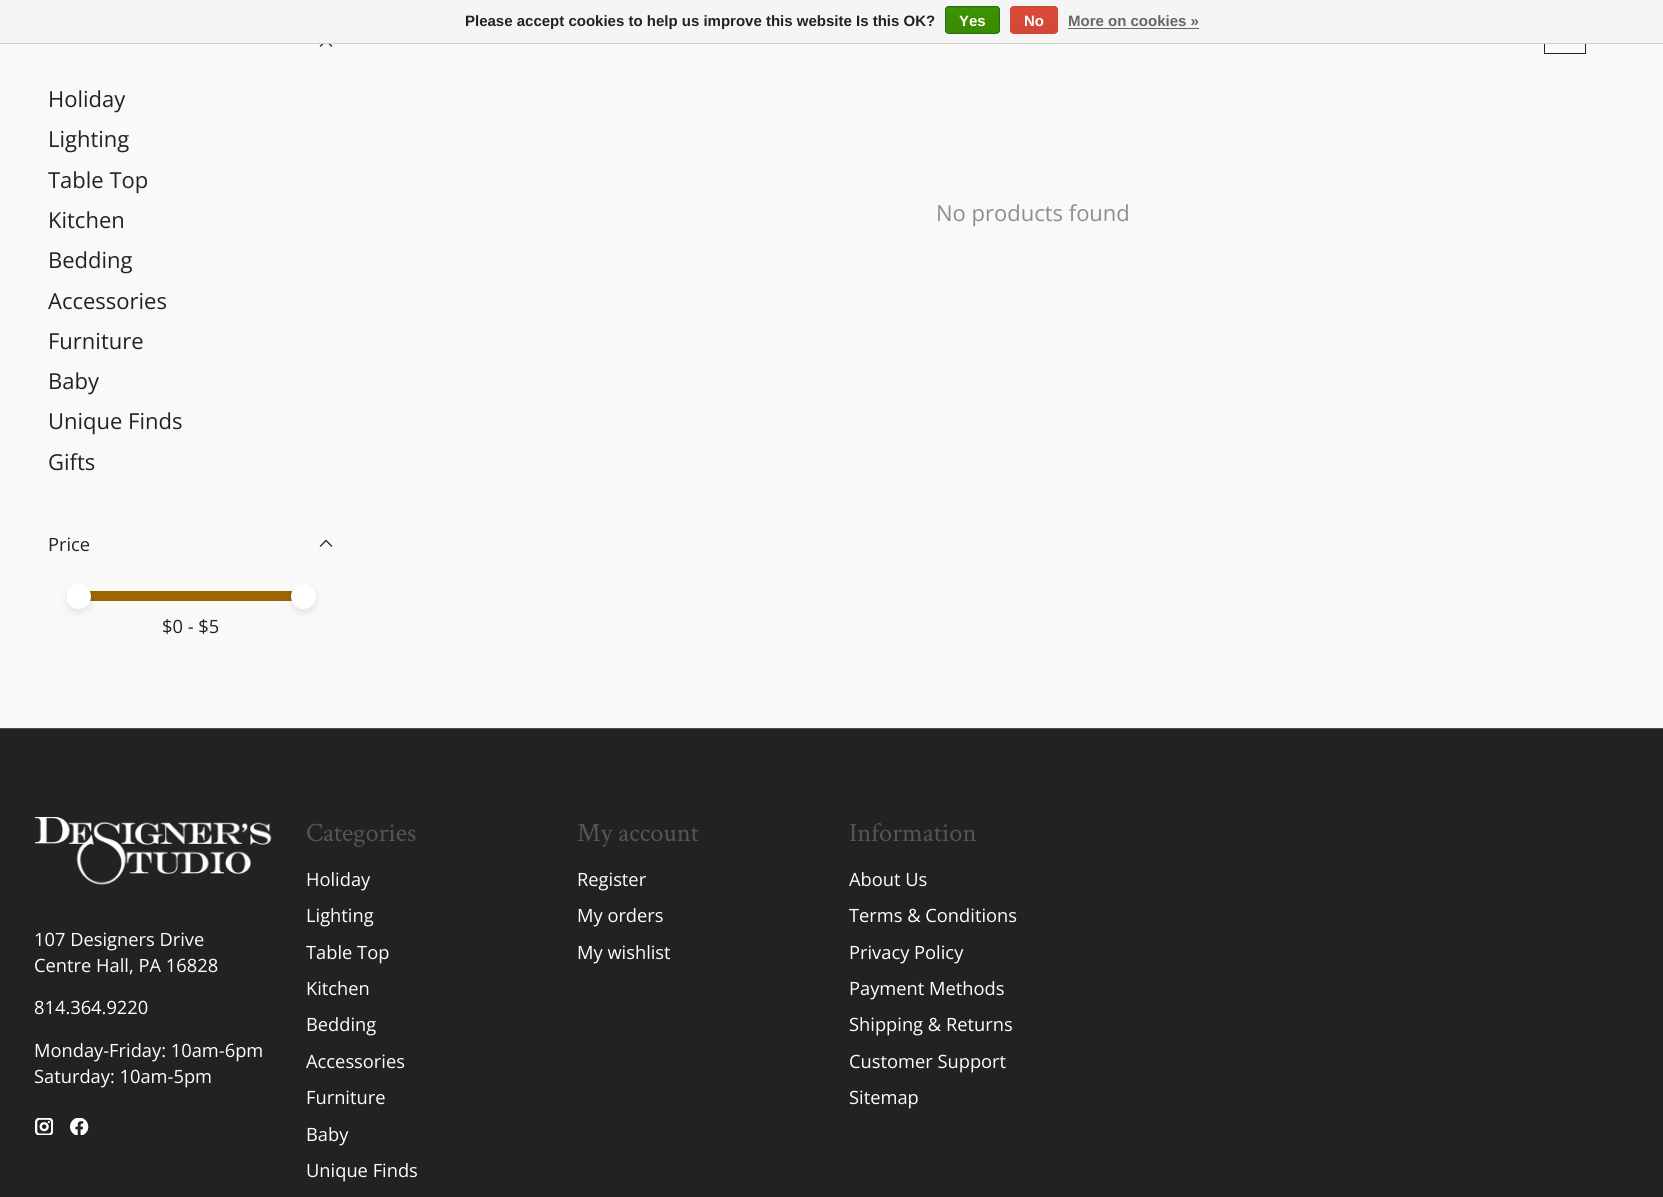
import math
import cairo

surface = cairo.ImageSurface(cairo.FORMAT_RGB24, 1663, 1197)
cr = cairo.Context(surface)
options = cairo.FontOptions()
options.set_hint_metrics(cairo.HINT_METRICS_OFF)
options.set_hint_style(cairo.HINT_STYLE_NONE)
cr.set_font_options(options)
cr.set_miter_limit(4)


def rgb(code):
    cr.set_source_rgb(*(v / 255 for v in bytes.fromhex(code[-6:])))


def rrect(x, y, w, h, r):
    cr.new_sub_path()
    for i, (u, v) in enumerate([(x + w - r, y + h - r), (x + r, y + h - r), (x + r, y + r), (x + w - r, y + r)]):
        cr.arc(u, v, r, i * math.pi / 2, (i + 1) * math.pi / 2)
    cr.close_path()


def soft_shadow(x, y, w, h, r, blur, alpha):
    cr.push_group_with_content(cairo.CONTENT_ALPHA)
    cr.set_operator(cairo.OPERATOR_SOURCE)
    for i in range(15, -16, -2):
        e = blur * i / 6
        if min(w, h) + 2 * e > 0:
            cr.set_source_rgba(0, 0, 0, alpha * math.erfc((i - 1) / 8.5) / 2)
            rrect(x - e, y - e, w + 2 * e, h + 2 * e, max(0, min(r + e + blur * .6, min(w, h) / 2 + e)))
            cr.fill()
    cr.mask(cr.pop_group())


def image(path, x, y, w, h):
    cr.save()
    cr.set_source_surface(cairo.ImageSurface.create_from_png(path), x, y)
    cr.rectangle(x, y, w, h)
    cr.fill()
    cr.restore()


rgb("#f9f9f9")
cr.paint()
cr.new_path()
cr.move_to(320.5, 46)
cr.line_to(326, 40.5)
cr.move_to(331.5, 46)
cr.line_to(326, 40.5)
rgb("#222222")
cr.set_line_width(1.3)
cr.set_line_cap(cairo.LINE_CAP_SQUARE)
cr.stroke()
cr.rectangle(1544.5, 10.5, 41, 43)
cr.set_line_width(1)
cr.set_line_cap(cairo.LINE_CAP_BUTT)
cr.stroke()
rgb("#f5f5f5")
cr.rectangle(0, 0, 1663, 43)
cr.fill()
rgb("#cccccc")
cr.rectangle(0, 43, 1663, 1)
cr.fill()
cr.save()
rrect(945, 6, 55, 28, 4)
cr.clip()
gradient = cairo.LinearGradient(973, -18, 973, 7.5)
gradient.add_color_stop_rgba(0, 0.235, 0.576, 0, 1)
gradient.add_color_stop_rgba(1, 0.224, 0.541, 0, 1)
cr.set_source(gradient)
cr.rectangle(945, 6, 55, 2)
cr.fill()
gradient = cairo.LinearGradient(973, 7.5, 973, 33)
gradient.add_color_stop_rgba(0, 0.235, 0.576, 0, 1)
gradient.add_color_stop_rgba(1, 0.224, 0.541, 0, 1)
cr.set_source(gradient)
cr.rectangle(945, 8, 55, 25)
cr.fill()
cr.restore()
rrect(945.5, 6.5, 54, 27, 3.5)
rgb("#29691d")
cr.stroke()
cr.save()
rrect(1010, 6, 48, 28, 4)
cr.clip()
gradient = cairo.LinearGradient(1034, -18, 1034, 7.5)
gradient.add_color_stop_rgba(0, 0.863, 0.29, 0.22, 1)
gradient.add_color_stop_rgba(1, 0.82, 0.282, 0.212, 1)
cr.set_source(gradient)
cr.rectangle(1010, 6, 48, 2)
cr.fill()
gradient = cairo.LinearGradient(1034, 7.5, 1034, 33)
gradient.add_color_stop_rgba(0, 0.863, 0.29, 0.22, 1)
gradient.add_color_stop_rgba(1, 0.82, 0.282, 0.212, 1)
cr.set_source(gradient)
cr.rectangle(1010, 8, 48, 25)
cr.fill()
cr.restore()
rrect(1010.5, 6.5, 47, 27, 3.5)
rgb("#d14836")
cr.stroke()
rgb("#666666")
cr.rectangle(1068, 28, 131, 1)
cr.fill()
cr.new_path()
cr.move_to(320.5, 546)
cr.line_to(326, 540.5)
cr.move_to(331.5, 546)
cr.line_to(326, 540.5)
rgb("#222222")
cr.set_line_width(1.3)
cr.set_line_cap(cairo.LINE_CAP_SQUARE)
cr.stroke()
rgb("#996600")
cr.new_path()
cr.move_to(71, 591)
cr.line_to(304, 591)
cr.line_to(304, 601)
cr.line_to(71, 601)
cr.curve_to(68, 601, 66, 599, 66, 596)
cr.curve_to(66, 593, 68, 591, 71, 591)
cr.close_path()
cr.fill()
rgb("#000000")
soft_shadow(66, 588, 25, 25, 12.5, 3.5, 0.08)
rgb("#ffffff")
cr.arc(78.5, 596.5, 12.5, 0, 2 * math.pi)
cr.fill()
rgb("#000000")
soft_shadow(291, 588, 25, 25, 12.5, 3.5, 0.08)
rgb("#ffffff")
cr.arc(303.5, 596.5, 12.5, 0, 2 * math.pi)
cr.fill()
rgb("#222222")
cr.rectangle(0, 729, 1663, 468)
cr.fill()
rgb("#4e4e4e")
cr.rectangle(0, 728, 1663, 1)
cr.fill()
image("img/1.png", 35, 817, 237, 68)
image("img/2.png", 35, 1118, 18, 17)
image("img/3.png", 70, 1118, 19, 17)
cr.select_font_face("Liberation Sans", cairo.FONT_SLANT_NORMAL, cairo.FONT_WEIGHT_BOLD)
cr.set_font_size(15)
rgb("#222222")
cr.move_to(465, 26)
cr.show_text("Please accept cookies to help us improve this website Is this OK?")
rgb("#ffffff")
cr.move_to(959, 26)
cr.show_text("Yes")
cr.move_to(1024, 26)
cr.show_text("No")
rgb("#666666")
cr.move_to(1068, 26)
cr.show_text("More on cookies »")
cr.select_font_face("Open Sans")
cr.set_font_size(22)
rgb("#222222")
for x, y, s in [
    (48, 107, "Holiday"),
    (48, 147, "Lighting"),
    (48, 188, "Table Top"),
    (48, 228, "Kitchen"),
    (48, 268, "Bedding"),
    (48, 309, "Accessories"),
    (48, 349, "Furniture"),
    (48, 389, "Baby"),
    (48, 429, "Unique Finds"),
    (48, 470, "Gifts"),
]:
    cr.move_to(x, y)
    cr.show_text(s)
cr.set_font_size(18.3)
cr.move_to(48, 551)
cr.show_text("Price")
cr.move_to(162, 633)
cr.show_text("$0 - $5")
cr.set_font_size(22)
rgb("#8e8e8e")
cr.move_to(936, 221)
cr.show_text("No products found")
cr.set_font_size(18.3)
rgb("#ffffff")
for x, y, s in [
    (34, 946, "107 Designers Drive"),
    (34, 972, "Centre Hall, PA 16828"),
    (34, 1014, "814.364.9220"),
    (34, 1057, "Monday-Friday: 10am-6pm"),
    (34, 1083, "Saturday: 10am-5pm"),
]:
    cr.move_to(x, y)
    cr.show_text(s)
cr.select_font_face("Crimson Text")
cr.set_font_size(26.5)
rgb("#555555")
cr.move_to(306, 841)
cr.show_text("Categories")
cr.select_font_face("Open Sans")
cr.set_font_size(18.3)
rgb("#ffffff")
for x, y, s in [
    (306, 886, "Holiday"),
    (306, 922, "Lighting"),
    (306, 959, "Table Top"),
    (306, 995, "Kitchen"),
    (306, 1031, "Bedding"),
    (306, 1068, "Accessories"),
    (306, 1104, "Furniture"),
    (306, 1141, "Baby"),
    (306, 1177, "Unique Finds"),
]:
    cr.move_to(x, y)
    cr.show_text(s)
cr.select_font_face("Crimson Text")
cr.set_font_size(26.5)
rgb("#555555")
cr.move_to(577, 841)
cr.show_text("My account")
cr.select_font_face("Open Sans")
cr.set_font_size(18.3)
rgb("#ffffff")
for x, y, s in [
    (577, 886, "Register"),
    (577, 922, "My orders"),
    (577, 959, "My wishlist"),
]:
    cr.move_to(x, y)
    cr.show_text(s)
cr.select_font_face("Crimson Text")
cr.set_font_size(26.5)
rgb("#555555")
cr.move_to(849, 841)
cr.show_text("Information")
cr.select_font_face("Open Sans")
cr.set_font_size(18.3)
rgb("#ffffff")
for x, y, s in [
    (849, 886, "About Us"),
    (849, 922, "Terms & Conditions"),
    (849, 959, "Privacy Policy"),
    (849, 995, "Payment Methods"),
    (849, 1031, "Shipping & Returns"),
    (849, 1068, "Customer Support"),
    (849, 1104, "Sitemap"),
]:
    cr.move_to(x, y)
    cr.show_text(s)
surface.write_to_png("page.png")
